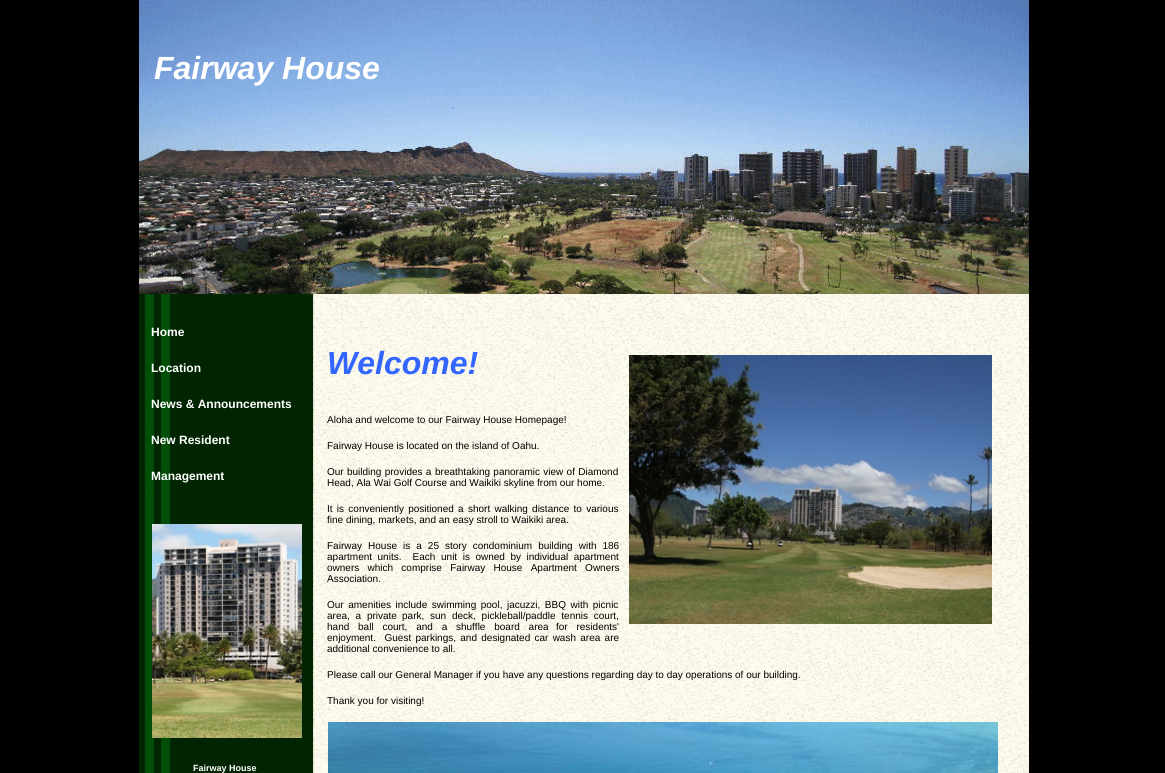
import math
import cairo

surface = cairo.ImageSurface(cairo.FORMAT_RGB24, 1165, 773)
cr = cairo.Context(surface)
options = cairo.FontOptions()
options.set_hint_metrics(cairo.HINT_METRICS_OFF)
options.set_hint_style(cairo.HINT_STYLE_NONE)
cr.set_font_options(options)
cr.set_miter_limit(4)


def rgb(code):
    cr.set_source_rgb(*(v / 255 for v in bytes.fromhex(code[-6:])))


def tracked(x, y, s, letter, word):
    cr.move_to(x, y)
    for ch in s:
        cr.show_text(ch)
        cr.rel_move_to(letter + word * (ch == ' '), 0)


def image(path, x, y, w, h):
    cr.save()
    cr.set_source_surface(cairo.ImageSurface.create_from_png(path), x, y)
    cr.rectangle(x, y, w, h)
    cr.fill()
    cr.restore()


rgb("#000000")
cr.paint()
image("img/1.png", 139, 0, 890, 294)
image("img/2.png", 139, 294, 890, 479)
image("img/3.png", 152, 524, 150, 214)
image("img/4.png", 629, 355, 363, 269)
image("img/5.png", 328, 722, 670, 51)
cr.select_font_face("Liberation Sans", cairo.FONT_SLANT_ITALIC, cairo.FONT_WEIGHT_BOLD)
cr.set_font_size(32)
rgb("#ffffff")
cr.move_to(154, 79)
cr.show_text("Fairway House")
cr.select_font_face("Liberation Sans", cairo.FONT_SLANT_NORMAL, cairo.FONT_WEIGHT_BOLD)
cr.set_font_size(12)
for x, y, s in [
    (151, 336, "Home"),
    (151, 372, "Location"),
    (151, 408, "News & Announcements"),
    (151, 444, "New Resident"),
    (151, 480, "Management"),
]:
    cr.move_to(x, y)
    cr.show_text(s)
cr.set_font_size(9)
cr.move_to(193, 771)
cr.show_text("Fairway House")
cr.select_font_face("Liberation Sans", cairo.FONT_SLANT_ITALIC, cairo.FONT_WEIGHT_BOLD)
cr.set_font_size(32)
rgb("#3366ff")
cr.move_to(327, 374)
cr.show_text("Welcome!")
cr.select_font_face("Liberation Sans")
cr.set_font_size(10)
rgb("#000000")
cr.move_to(327, 423)
cr.show_text("Aloha and welcome to our Fairway House Homepage!")
cr.move_to(327, 449)
cr.show_text("Fairway House is located on the island of Oahu.")
tracked(327, 475, "Our building provides a", 0, 0.5)
tracked(435, 475, "breathtaking panoramic view of Diamond", 0, 0.5)
cr.move_to(327, 486)
cr.show_text("Head, Ala Wai Golf Course and Waikiki skyline from our home.")
tracked(327, 512, "It is conveniently positioned a short walking distance to various", 0, 1.5)
cr.move_to(327, 523)
cr.show_text("fine dining, markets, and an easy stroll to Waikiki area.")
tracked(327, 549, "Fairway House is a 25 story condominium building with 186", 0, 3.25)
tracked(327, 560, "apartment units.  Each", 0, 2.75)
tracked(441, 560, "unit is owned by individual apartment", 0, 2.75)
tracked(327, 571, "owners which comprise Fairway House Apartment Owners", 0, 5.5)
cr.move_to(327, 582)
cr.show_text("Association.")
tracked(327, 608, "Our amenities include swimming pool, jacuzzi, BBQ with picnic", 0, 1.75)
tracked(327, 619, "area, a private", 0, 3)
tracked(402, 619, "park, sun deck, pickleball/paddle tennis court,", 0, 3)
tracked(327, 630, "hand ball court, and a shuffle board area", 0, 6)
tracked(556, 630, "for residents'", 0, 6)
tracked(327, 641, "enjoyment.  Guest parkings, and designated car wash area are", 0, 1.5)
for x, y, s in [
    (327, 652, "additional convenience to all."),
    (327, 678, "Please call our General Manager if you have any questions regarding day to day operations of our building."),
    (327, 704, "Thank you for visiting!"),
]:
    cr.move_to(x, y)
    cr.show_text(s)
surface.write_to_png("page.png")
